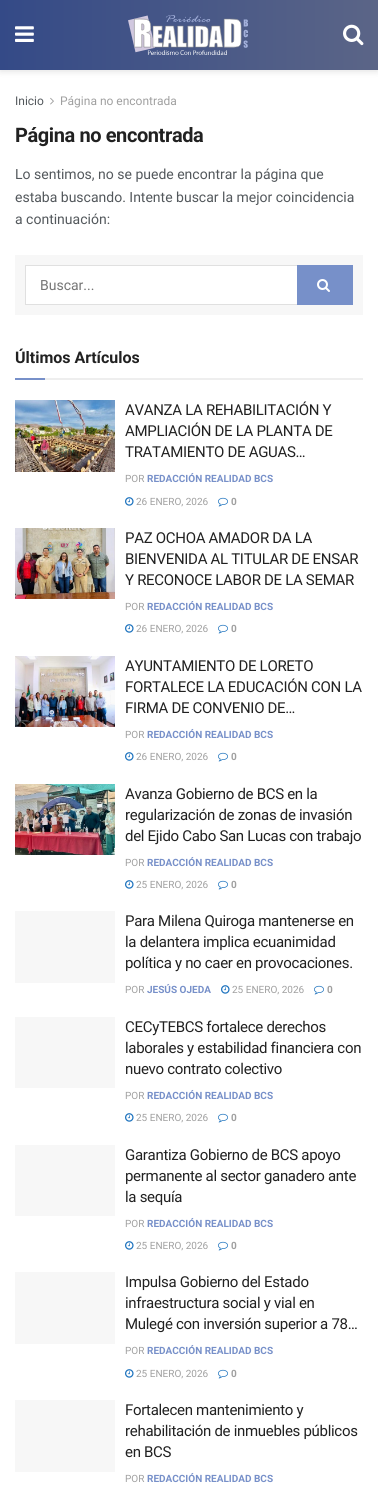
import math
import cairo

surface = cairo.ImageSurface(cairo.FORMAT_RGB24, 378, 1489)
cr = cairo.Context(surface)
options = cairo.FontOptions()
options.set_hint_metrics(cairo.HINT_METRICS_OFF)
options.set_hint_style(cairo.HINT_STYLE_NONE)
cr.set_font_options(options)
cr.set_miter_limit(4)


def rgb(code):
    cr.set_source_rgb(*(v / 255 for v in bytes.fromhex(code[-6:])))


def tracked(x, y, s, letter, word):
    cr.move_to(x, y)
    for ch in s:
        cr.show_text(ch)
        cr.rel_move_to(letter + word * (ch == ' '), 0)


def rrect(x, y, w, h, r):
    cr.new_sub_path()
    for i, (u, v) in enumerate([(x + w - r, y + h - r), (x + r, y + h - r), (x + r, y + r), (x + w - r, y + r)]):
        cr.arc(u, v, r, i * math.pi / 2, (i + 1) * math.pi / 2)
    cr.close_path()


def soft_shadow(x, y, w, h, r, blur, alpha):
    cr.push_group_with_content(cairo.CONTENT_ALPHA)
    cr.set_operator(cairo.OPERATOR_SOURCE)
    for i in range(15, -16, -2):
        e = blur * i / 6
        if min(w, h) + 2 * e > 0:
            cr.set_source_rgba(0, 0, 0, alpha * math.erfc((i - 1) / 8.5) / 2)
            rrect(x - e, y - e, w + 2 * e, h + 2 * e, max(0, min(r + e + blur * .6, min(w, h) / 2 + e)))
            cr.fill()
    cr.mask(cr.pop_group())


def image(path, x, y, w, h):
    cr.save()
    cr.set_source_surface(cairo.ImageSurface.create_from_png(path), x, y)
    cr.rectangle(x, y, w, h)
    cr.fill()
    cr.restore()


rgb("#ffffff")
cr.paint()
rgb("#000000")
soft_shadow(0, 2, 378, 70, 0, 3, 0.1)
gradient = cairo.LinearGradient(0, 35, 378, 35)
gradient.add_color_stop_rgba(0, 0.204, 0.29, 0.529, 1)
gradient.add_color_stop_rgba(1, 0.357, 0.396, 0.529, 1)
cr.set_source(gradient)
cr.rectangle(0, 0, 378, 70)
cr.fill()
image("img/1.png", 15, 26, 19, 16)
image("img/2.png", 128, 15, 120, 40)
image("img/3.png", 343, 24, 21, 22)
image("img/4.png", 50, 97, 4, 8)
rgb("#f7f7f7")
cr.rectangle(15, 255, 348, 60)
cr.fill()
rgb("#ffffff")
cr.rectangle(26, 266, 271, 38)
cr.fill()
cr.rectangle(25.5, 265.5, 327, 39)
rgb("#e0e0e0")
cr.set_line_width(1)
cr.stroke()
rgb("#7790c9")
cr.rectangle(297, 265, 56, 40)
cr.fill()
image("img/5.png", 317, 279, 13, 13)
rgb("#eeeeee")
cr.rectangle(45, 378, 318, 2)
cr.fill()
rgb("#7790c9")
cr.rectangle(15, 378, 30, 2)
cr.fill()
image("img/6.png", 15, 400, 100, 72)
image("img/7.png", 125, 497, 9, 9)
image("img/8.png", 218, 497, 10, 10)
image("img/9.png", 15, 528, 100, 71)
image("img/7.png", 125, 624, 9, 9)
image("img/8.png", 218, 624, 10, 10)
image("img/10.png", 15, 656, 100, 71)
image("img/7.png", 125, 752, 9, 9)
image("img/8.png", 218, 752, 10, 10)
image("img/11.png", 15, 784, 100, 71)
image("img/7.png", 125, 880, 9, 9)
image("img/8.png", 218, 880, 10, 10)
rgb("#f7f7f7")
cr.rectangle(15, 911, 100, 72)
cr.fill()
image("img/7.png", 221, 985, 9, 9)
image("img/8.png", 314, 985, 10, 10)
cr.rectangle(15, 1017, 100, 71)
cr.fill()
image("img/7.png", 125, 1113, 9, 9)
image("img/8.png", 218, 1113, 10, 10)
cr.rectangle(15, 1145, 100, 71)
cr.fill()
image("img/7.png", 125, 1241, 9, 9)
image("img/8.png", 218, 1241, 10, 10)
cr.rectangle(15, 1272, 100, 72)
cr.fill()
image("img/7.png", 125, 1369, 9, 9)
image("img/8.png", 218, 1369, 10, 10)
cr.rectangle(15, 1400, 100, 72)
cr.fill()
cr.select_font_face("Roboto")
cr.set_font_size(12)
rgb("#53585c")
cr.move_to(15, 105)
cr.show_text("Inicio")
rgb("#a0a0a0")
cr.move_to(60, 105)
cr.show_text("Página no encontrada")
cr.select_font_face("Roboto", cairo.FONT_SLANT_NORMAL, cairo.FONT_WEIGHT_BOLD)
cr.set_font_size(20)
rgb("#212121")
tracked(15, 142, "Página no encontrada", -0.4, 0)
cr.select_font_face("Roboto")
cr.set_font_size(14)
rgb("#53585c")
for x, y, s in [
    (15, 179, "Lo sentimos, no se puede encontrar la página que"),
    (15, 202, "estaba buscando. Intente buscar la mejor coincidencia"),
    (15, 224, "a continuación:"),
]:
    cr.move_to(x, y)
    cr.show_text(s)
rgb("#757575")
cr.move_to(40, 290)
cr.show_text("Buscar...")
cr.select_font_face("Roboto", cairo.FONT_SLANT_NORMAL, cairo.FONT_WEIGHT_BOLD)
cr.set_font_size(16)
rgb("#212121")
cr.move_to(15, 363)
cr.show_text("Últimos Artículos")
cr.select_font_face("Roboto")
cr.set_font_size(15)
for x, y, s in [
    (125, 415, "AVANZA LA REHABILITACIÓN Y"),
    (125, 436, "AMPLIACIÓN DE LA PLANTA DE"),
    (125, 457, "TRATAMIENTO DE AGUAS…"),
]:
    tracked(x, y, s, -0.3, 0)
cr.set_font_size(10)
rgb("#a0a0a0")
cr.move_to(125, 482)
cr.show_text("POR")
cr.select_font_face("Roboto", cairo.FONT_SLANT_NORMAL, cairo.FONT_WEIGHT_BOLD)
rgb("#7790c9")
cr.move_to(147, 482)
cr.show_text("REDACCIÓN REALIDAD BCS")
cr.select_font_face("Roboto")
rgb("#a0a0a0")
cr.move_to(136, 505)
cr.show_text("26 ENERO, 2026")
cr.select_font_face("Roboto", cairo.FONT_SLANT_NORMAL, cairo.FONT_WEIGHT_BOLD)
cr.move_to(231, 505)
cr.show_text("0")
cr.select_font_face("Roboto")
cr.set_font_size(15)
rgb("#212121")
for x, y, s in [
    (125, 543, "PAZ OCHOA AMADOR DA LA"),
    (125, 564, "BIENVENIDA AL TITULAR DE ENSAR"),
    (125, 585, "Y RECONOCE LABOR DE LA SEMAR"),
]:
    tracked(x, y, s, -0.3, 0)
cr.set_font_size(10)
rgb("#a0a0a0")
cr.move_to(125, 610)
cr.show_text("POR")
cr.select_font_face("Roboto", cairo.FONT_SLANT_NORMAL, cairo.FONT_WEIGHT_BOLD)
rgb("#7790c9")
cr.move_to(147, 610)
cr.show_text("REDACCIÓN REALIDAD BCS")
cr.select_font_face("Roboto")
rgb("#a0a0a0")
cr.move_to(136, 632)
cr.show_text("26 ENERO, 2026")
cr.select_font_face("Roboto", cairo.FONT_SLANT_NORMAL, cairo.FONT_WEIGHT_BOLD)
cr.move_to(231, 632)
cr.show_text("0")
cr.select_font_face("Roboto")
cr.set_font_size(15)
rgb("#212121")
for x, y, s in [
    (125, 671, "AYUNTAMIENTO DE LORETO"),
    (125, 692, "FORTALECE LA EDUCACIÓN CON LA"),
    (125, 713, "FIRMA DE CONVENIO DE…"),
]:
    tracked(x, y, s, -0.3, 0)
cr.set_font_size(10)
rgb("#a0a0a0")
cr.move_to(125, 738)
cr.show_text("POR")
cr.select_font_face("Roboto", cairo.FONT_SLANT_NORMAL, cairo.FONT_WEIGHT_BOLD)
rgb("#7790c9")
cr.move_to(147, 738)
cr.show_text("REDACCIÓN REALIDAD BCS")
cr.select_font_face("Roboto")
rgb("#a0a0a0")
cr.move_to(136, 760)
cr.show_text("26 ENERO, 2026")
cr.select_font_face("Roboto", cairo.FONT_SLANT_NORMAL, cairo.FONT_WEIGHT_BOLD)
cr.move_to(231, 760)
cr.show_text("0")
cr.select_font_face("Roboto")
cr.set_font_size(15)
rgb("#212121")
for x, y, s in [
    (125, 799, "Avanza Gobierno de BCS en la"),
    (125, 820, "regularización de zonas de invasión"),
    (125, 841, "del Ejido Cabo San Lucas con trabajo"),
]:
    tracked(x, y, s, -0.3, 0)
cr.set_font_size(10)
rgb("#a0a0a0")
cr.move_to(125, 866)
cr.show_text("POR")
cr.select_font_face("Roboto", cairo.FONT_SLANT_NORMAL, cairo.FONT_WEIGHT_BOLD)
rgb("#7790c9")
cr.move_to(147, 866)
cr.show_text("REDACCIÓN REALIDAD BCS")
cr.select_font_face("Roboto")
rgb("#a0a0a0")
cr.move_to(136, 888)
cr.show_text("25 ENERO, 2026")
cr.select_font_face("Roboto", cairo.FONT_SLANT_NORMAL, cairo.FONT_WEIGHT_BOLD)
cr.move_to(231, 888)
cr.show_text("0")
cr.select_font_face("Roboto")
cr.set_font_size(15)
rgb("#212121")
for x, y, s in [
    (125, 926, "Para Milena Quiroga mantenerse en"),
    (125, 947, "la delantera implica ecuanimidad"),
    (125, 968, "política y no caer en provocaciones."),
]:
    tracked(x, y, s, -0.3, 0)
cr.set_font_size(10)
rgb("#a0a0a0")
cr.move_to(125, 993)
cr.show_text("POR")
cr.select_font_face("Roboto", cairo.FONT_SLANT_NORMAL, cairo.FONT_WEIGHT_BOLD)
rgb("#7790c9")
cr.move_to(147, 993)
cr.show_text("JESÚS OJEDA")
cr.select_font_face("Roboto")
rgb("#a0a0a0")
cr.move_to(232, 993)
cr.show_text("25 ENERO, 2026")
cr.select_font_face("Roboto", cairo.FONT_SLANT_NORMAL, cairo.FONT_WEIGHT_BOLD)
cr.move_to(327, 993)
cr.show_text("0")
cr.select_font_face("Roboto")
cr.set_font_size(15)
rgb("#212121")
for x, y, s in [
    (125, 1032, "CECyTEBCS fortalece derechos"),
    (125, 1053, "laborales y estabilidad financiera con"),
    (125, 1074, "nuevo contrato colectivo"),
]:
    tracked(x, y, s, -0.3, 0)
cr.set_font_size(10)
rgb("#a0a0a0")
cr.move_to(125, 1099)
cr.show_text("POR")
cr.select_font_face("Roboto", cairo.FONT_SLANT_NORMAL, cairo.FONT_WEIGHT_BOLD)
rgb("#7790c9")
cr.move_to(147, 1099)
cr.show_text("REDACCIÓN REALIDAD BCS")
cr.select_font_face("Roboto")
rgb("#a0a0a0")
cr.move_to(136, 1121)
cr.show_text("25 ENERO, 2026")
cr.select_font_face("Roboto", cairo.FONT_SLANT_NORMAL, cairo.FONT_WEIGHT_BOLD)
cr.move_to(231, 1121)
cr.show_text("0")
cr.select_font_face("Roboto")
cr.set_font_size(15)
rgb("#212121")
for x, y, s in [
    (125, 1160, "Garantiza Gobierno de BCS apoyo"),
    (125, 1181, "permanente al sector ganadero ante"),
    (125, 1202, "la sequía"),
]:
    tracked(x, y, s, -0.3, 0)
cr.set_font_size(10)
rgb("#a0a0a0")
cr.move_to(125, 1227)
cr.show_text("POR")
cr.select_font_face("Roboto", cairo.FONT_SLANT_NORMAL, cairo.FONT_WEIGHT_BOLD)
rgb("#7790c9")
cr.move_to(147, 1227)
cr.show_text("REDACCIÓN REALIDAD BCS")
cr.select_font_face("Roboto")
rgb("#a0a0a0")
cr.move_to(136, 1249)
cr.show_text("25 ENERO, 2026")
cr.select_font_face("Roboto", cairo.FONT_SLANT_NORMAL, cairo.FONT_WEIGHT_BOLD)
cr.move_to(231, 1249)
cr.show_text("0")
cr.select_font_face("Roboto")
cr.set_font_size(15)
rgb("#212121")
for x, y, s in [
    (125, 1287, "Impulsa Gobierno del Estado"),
    (125, 1308, "infraestructura social y vial en"),
    (125, 1329, "Mulegé con inversión superior a 78…"),
]:
    tracked(x, y, s, -0.3, 0)
cr.set_font_size(10)
rgb("#a0a0a0")
cr.move_to(125, 1354)
cr.show_text("POR")
cr.select_font_face("Roboto", cairo.FONT_SLANT_NORMAL, cairo.FONT_WEIGHT_BOLD)
rgb("#7790c9")
cr.move_to(147, 1354)
cr.show_text("REDACCIÓN REALIDAD BCS")
cr.select_font_face("Roboto")
rgb("#a0a0a0")
cr.move_to(136, 1377)
cr.show_text("25 ENERO, 2026")
cr.select_font_face("Roboto", cairo.FONT_SLANT_NORMAL, cairo.FONT_WEIGHT_BOLD)
cr.move_to(231, 1377)
cr.show_text("0")
cr.select_font_face("Roboto")
cr.set_font_size(15)
rgb("#212121")
for x, y, s in [
    (125, 1415, "Fortalecen mantenimiento y"),
    (125, 1436, "rehabilitación de inmuebles públicos"),
    (125, 1457, "en BCS"),
]:
    tracked(x, y, s, -0.3, 0)
cr.set_font_size(10)
rgb("#a0a0a0")
cr.move_to(125, 1482)
cr.show_text("POR")
cr.select_font_face("Roboto", cairo.FONT_SLANT_NORMAL, cairo.FONT_WEIGHT_BOLD)
rgb("#7790c9")
cr.move_to(147, 1482)
cr.show_text("REDACCIÓN REALIDAD BCS")
surface.write_to_png("page.png")
